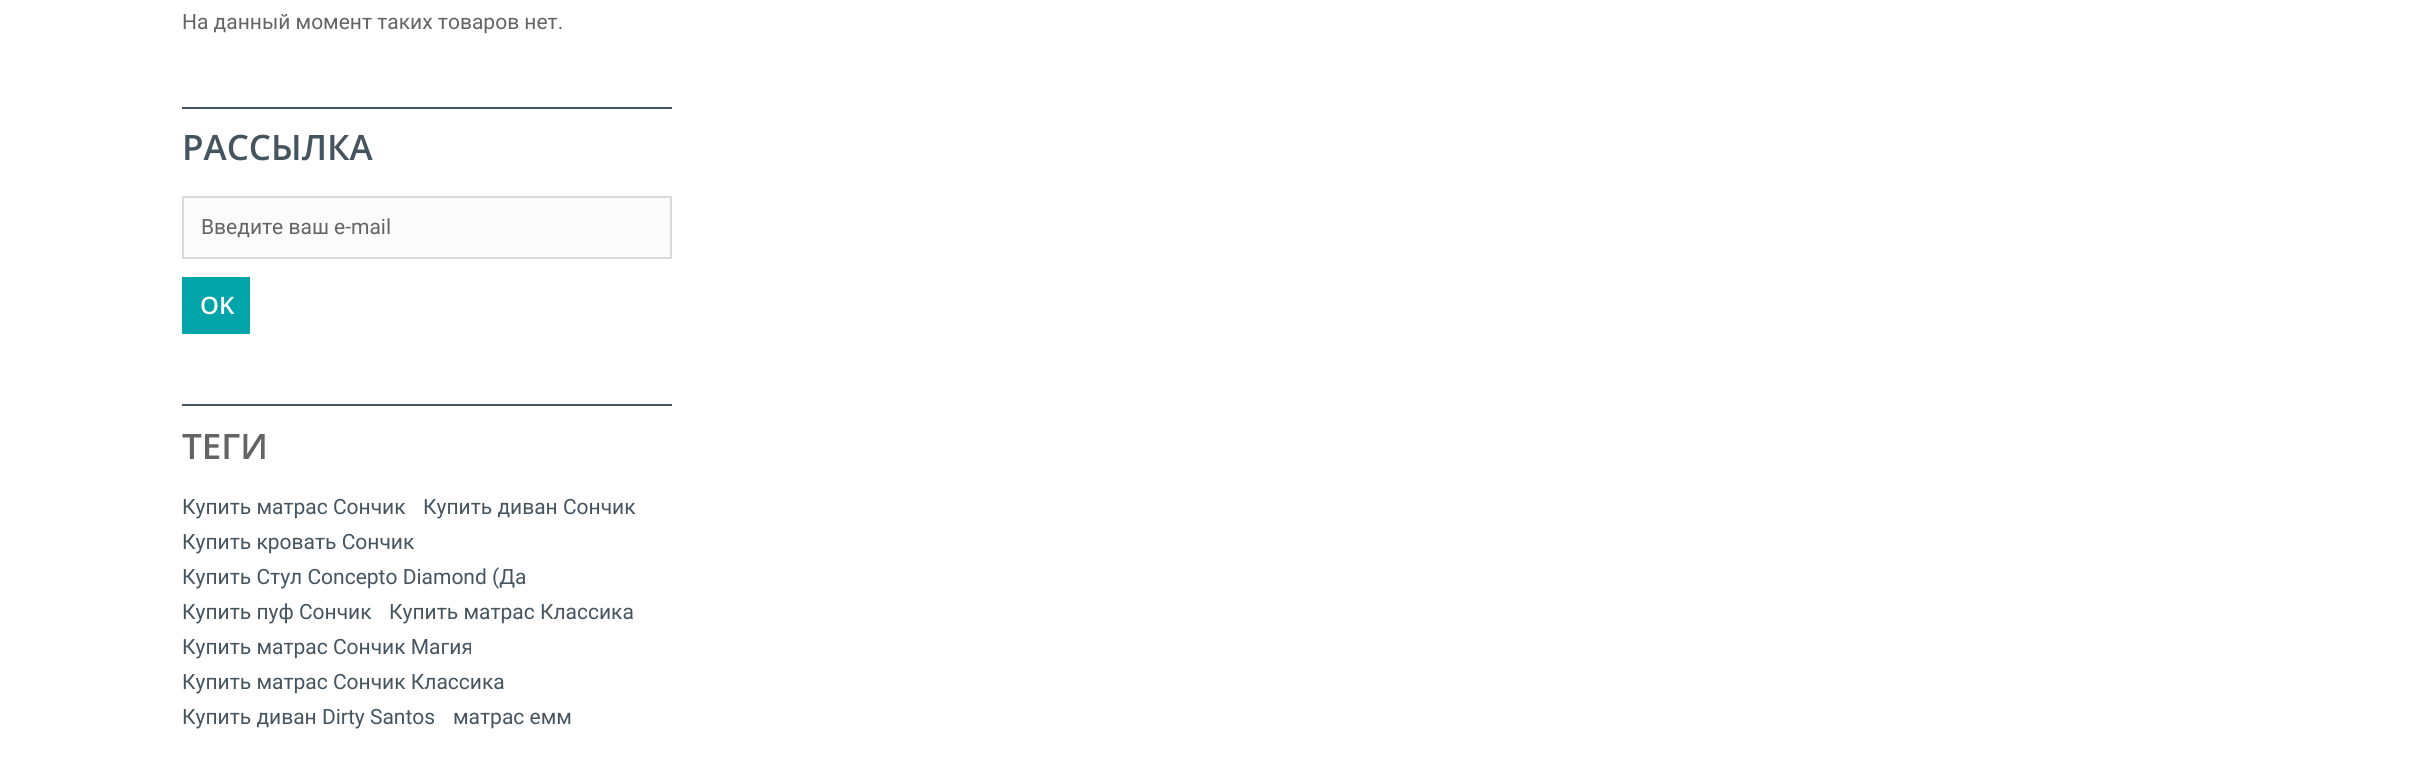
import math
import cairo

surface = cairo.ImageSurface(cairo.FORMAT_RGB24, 2429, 765)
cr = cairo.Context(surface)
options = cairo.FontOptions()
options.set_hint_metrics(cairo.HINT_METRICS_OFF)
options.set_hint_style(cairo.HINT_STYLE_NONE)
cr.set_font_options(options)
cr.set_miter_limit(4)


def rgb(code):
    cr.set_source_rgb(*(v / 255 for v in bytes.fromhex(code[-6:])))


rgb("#ffffff")
cr.paint()
rgb("#455560")
cr.rectangle(182, 107, 490, 2)
cr.fill()
rgb("#fbfbfb")
cr.rectangle(183, 197, 488, 61)
cr.fill_preserve()
rgb("#d9d9d9")
cr.stroke()
rgb("#01a4a9")
cr.rectangle(182, 277, 68, 57)
cr.fill()
rgb("#455560")
cr.rectangle(182, 404, 490, 2)
cr.fill()
cr.select_font_face("Roboto")
cr.set_font_size(21)
rgb("#646464")
cr.move_to(182, 29)
cr.show_text("На данный момент таких товаров нет.")
cr.select_font_face("Open Sans SemiBold")
cr.set_font_size(35)
rgb("#455560")
cr.move_to(182, 160)
cr.show_text("РАССЫЛКА")
cr.select_font_face("Roboto")
cr.set_font_size(21)
rgb("#646464")
cr.move_to(201, 234)
cr.show_text("Введите ваш e-mail")
cr.select_font_face("Open Sans SemiBold")
cr.set_font_size(24)
rgb("#ffffff")
cr.move_to(200, 314)
cr.show_text("OK")
cr.set_font_size(35)
rgb("#646464")
cr.move_to(182, 459)
cr.show_text("ТЕГИ")
cr.select_font_face("Roboto")
cr.set_font_size(21)
rgb("#455560")
for x, y, s in [
    (182, 514, "Купить матрас Сончик"),
    (423, 514, "Купить диван Сончик"),
    (182, 549, "Купить кровать Сончик"),
    (182, 584, "Купить Стул Concepto Diamond (Да"),
    (182, 619, "Купить пуф Сончик"),
    (389, 619, "Купить матрас Классика"),
    (182, 654, "Купить матрас Сончик Магия"),
    (182, 689, "Купить матрас Сончик Классика"),
    (182, 724, "Купить диван Dirty Santos"),
    (453, 724, "матрас емм"),
]:
    cr.move_to(x, y)
    cr.show_text(s)
surface.write_to_png("page.png")
